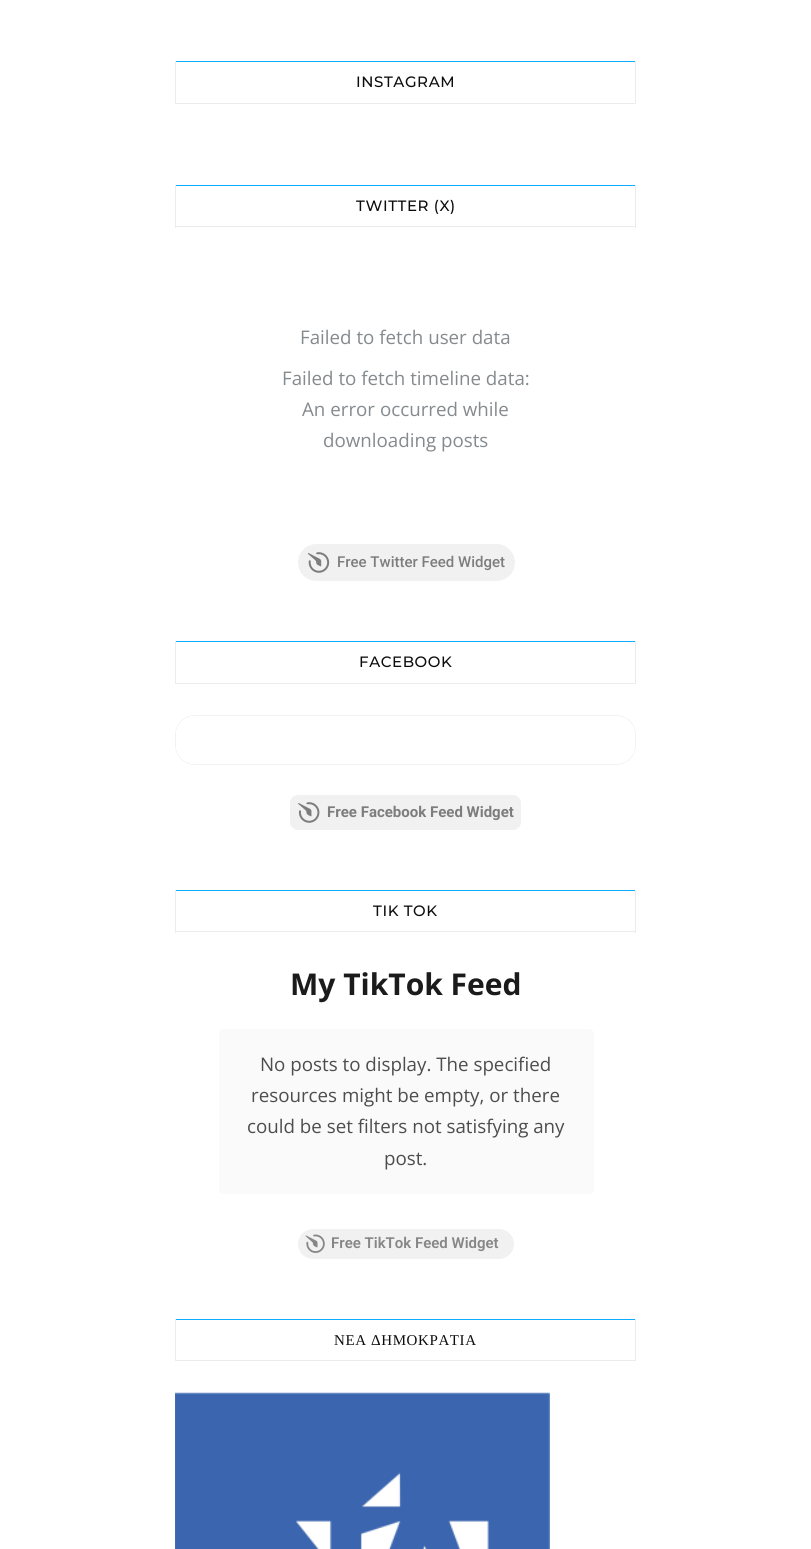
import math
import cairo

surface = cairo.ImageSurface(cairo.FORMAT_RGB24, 811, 1549)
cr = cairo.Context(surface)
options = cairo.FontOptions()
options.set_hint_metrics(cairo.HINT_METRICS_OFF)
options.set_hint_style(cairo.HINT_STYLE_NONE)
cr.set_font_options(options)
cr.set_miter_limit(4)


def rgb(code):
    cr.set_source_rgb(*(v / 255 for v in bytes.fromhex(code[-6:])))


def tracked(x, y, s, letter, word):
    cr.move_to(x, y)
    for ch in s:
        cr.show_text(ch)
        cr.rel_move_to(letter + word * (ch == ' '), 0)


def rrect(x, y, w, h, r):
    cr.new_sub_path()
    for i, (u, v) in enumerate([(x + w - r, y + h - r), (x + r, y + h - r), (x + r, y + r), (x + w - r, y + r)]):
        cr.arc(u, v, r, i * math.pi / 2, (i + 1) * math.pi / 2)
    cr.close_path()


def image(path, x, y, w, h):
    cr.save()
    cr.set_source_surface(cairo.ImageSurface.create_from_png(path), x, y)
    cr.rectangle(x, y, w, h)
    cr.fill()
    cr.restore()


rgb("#ffffff")
cr.paint()
for x, y, w, h, color in [
    (175, 61, 461, 1, "#0aacff"),
    (635, 61, 1, 43, "#ececec"),
    (175, 103, 461, 1, "#ececec"),
    (175, 61, 1, 43, "#ececec"),
    (175, 185, 461, 1, "#0aacff"),
    (635, 185, 1, 43, "#ececec"),
    (175, 226, 461, 1, "#ececec"),
    (175, 185, 1, 43, "#ececec"),
]:
    rgb(color)
    cr.rectangle(x, y, w, h)
    cr.fill()
rgb("#f1f1f1")
rrect(298, 544, 217, 37, 18.5)
cr.fill()
image("img/1.png", 308, 552, 22, 21)
for x, y, w, h, color in [
    (175, 641, 461, 1, "#0aacff"),
    (635, 641, 1, 43, "#ececec"),
    (175, 683, 461, 1, "#ececec"),
    (175, 641, 1, 43, "#ececec"),
]:
    rgb(color)
    cr.rectangle(x, y, w, h)
    cr.fill()
rrect(175.5, 715.5, 460, 49, 19.5)
rgb("#f2f2f2")
cr.set_line_width(1)
cr.stroke()
rgb("#ffffff")
rrect(176, 716, 459, 48, 19)
cr.fill()
rgb("#f1f1f1")
rrect(290, 795, 231, 35, 8)
cr.fill()
image("img/2.png", 298, 802, 22, 21)
for x, y, w, h, color in [
    (175, 890, 461, 1, "#0aacff"),
    (635, 890, 1, 43, "#ececec"),
    (175, 931, 461, 1, "#ececec"),
    (175, 890, 1, 43, "#ececec"),
]:
    rgb(color)
    cr.rectangle(x, y, w, h)
    cr.fill()
rgb("#fafafa")
rrect(219, 1029, 375, 165, 5)
cr.fill()
rgb("#f1f1f1")
rrect(298, 1229, 216, 30, 15)
cr.fill()
image("img/3.png", 305, 1234, 20, 19)
for x, y, w, h, color in [
    (175, 1319, 461, 1, "#0aacff"),
    (635, 1319, 1, 42, "#ececec"),
    (175, 1360, 461, 1, "#ececec"),
    (175, 1319, 1, 42, "#ececec"),
]:
    rgb(color)
    cr.rectangle(x, y, w, h)
    cr.fill()
image("img/4.png", 175, 1392, 375, 157)
cr.select_font_face("Montserrat Medium")
cr.set_font_size(15)
rgb("#0d0d0d")
tracked(356, 87, "INSTAGRAM", 0.6, 0)
tracked(356, 211, "TWITTER (X)", 0.6, 0)
cr.select_font_face("Open Sans")
cr.set_font_size(18.75)
rgb("#848a8d")
for x, y, s in [
    (300, 344, "Failed to fetch user data"),
    (282, 385, "Failed to fetch timeline data:"),
    (302, 416, "An error occurred while"),
    (323, 447, "downloading posts"),
]:
    cr.move_to(x, y)
    cr.show_text(s)
cr.select_font_face("Roboto Medium")
cr.set_font_size(15)
rgb("#7d7d7d")
cr.move_to(337, 567)
cr.show_text("Free Twitter Feed Widget")
cr.select_font_face("Montserrat Medium")
rgb("#0d0d0d")
tracked(359, 667, "FACEBOOK", 0.6, 0)
cr.select_font_face("Roboto", cairo.FONT_SLANT_NORMAL, cairo.FONT_WEIGHT_BOLD)
rgb("#7d7d7d")
cr.move_to(327, 817)
cr.show_text("Free Facebook Feed Widget")
cr.select_font_face("Montserrat Medium")
rgb("#0d0d0d")
tracked(373, 916, "TIK TOK", 0.6, 0)
cr.select_font_face("Open Sans", cairo.FONT_SLANT_NORMAL, cairo.FONT_WEIGHT_BOLD)
cr.set_font_size(30)
rgb("#1b1b1b")
cr.move_to(290, 995)
cr.show_text("My TikTok Feed")
cr.select_font_face("Open Sans")
cr.set_font_size(18.75)
rgb("#4d4d4d")
for x, y, s in [
    (260, 1071, "No posts to display. The specified"),
    (251, 1102, "resources might be empty, or there"),
    (247, 1133, "could be set filters not satisfying any"),
    (384, 1165, "post."),
]:
    cr.move_to(x, y)
    cr.show_text(s)
cr.select_font_face("Roboto SemiBold")
cr.set_font_size(15)
rgb("#868686")
cr.move_to(331, 1248)
cr.show_text("Free TikTok Feed Widget")
cr.select_font_face("Liberation Serif")
rgb("#0d0d0d")
tracked(334, 1345, "ΝΕΑ ΔΗΜΟΚΡΑΤΙΑ", 0.6, 0)
surface.write_to_png("page.png")
